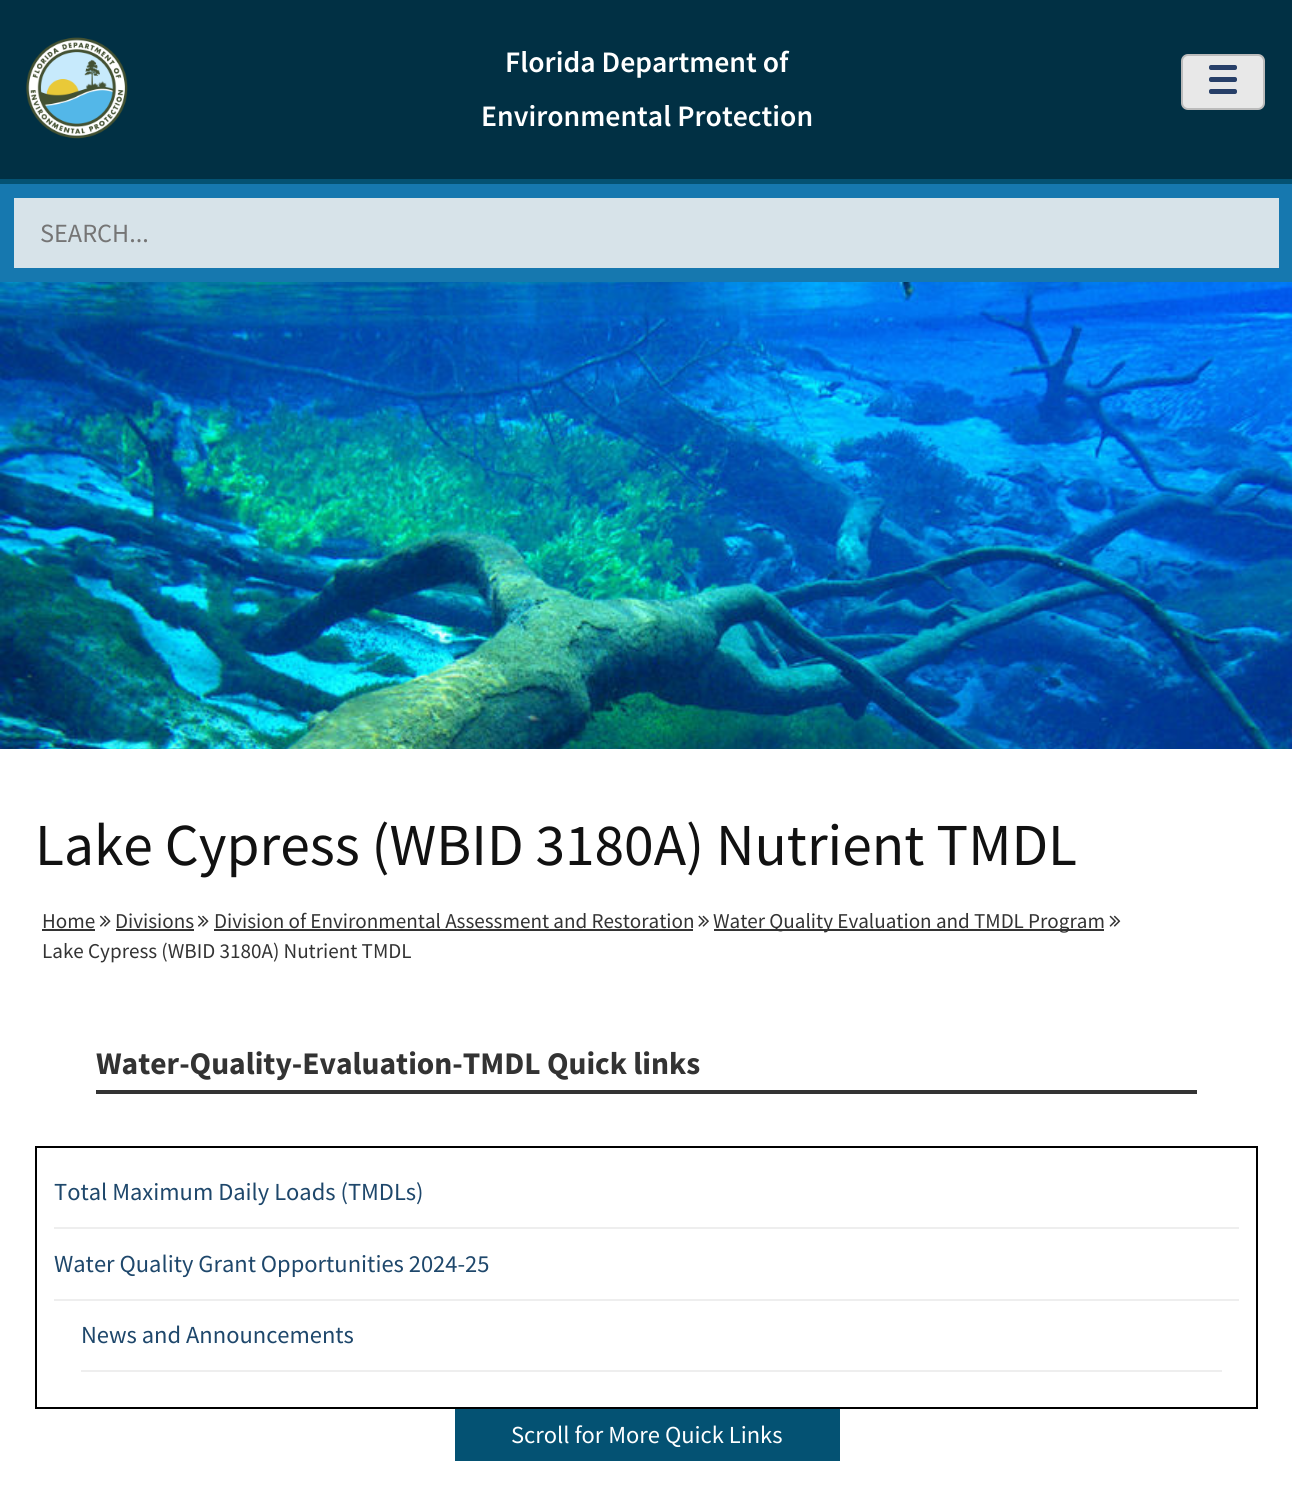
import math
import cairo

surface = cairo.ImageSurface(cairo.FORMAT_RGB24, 1292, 1493)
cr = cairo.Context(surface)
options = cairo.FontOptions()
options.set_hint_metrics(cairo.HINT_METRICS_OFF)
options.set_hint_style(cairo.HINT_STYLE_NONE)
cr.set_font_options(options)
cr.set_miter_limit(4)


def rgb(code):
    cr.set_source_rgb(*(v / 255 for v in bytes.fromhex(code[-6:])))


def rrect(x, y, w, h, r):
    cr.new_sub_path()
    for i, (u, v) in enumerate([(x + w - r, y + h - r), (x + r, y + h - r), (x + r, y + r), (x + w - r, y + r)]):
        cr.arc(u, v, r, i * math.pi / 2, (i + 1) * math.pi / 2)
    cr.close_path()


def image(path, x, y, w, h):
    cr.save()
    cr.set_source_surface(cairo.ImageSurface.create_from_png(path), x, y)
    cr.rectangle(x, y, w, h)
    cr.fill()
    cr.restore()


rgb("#045273")
cr.paint()
rgb("#013044")
cr.rectangle(0, 0, 1292, 179)
cr.fill()
image("img/1.png", 26, 37, 102, 102)
rgb("#e8e8e8")
rrect(1182, 55, 82, 54, 6)
cr.fill_preserve()
rgb("#bbbbbb")
cr.stroke()
rgb("#273f68")
rrect(1209, 65, 28, 5, 2)
cr.fill()
rrect(1209, 77, 28, 5, 2)
cr.fill()
rrect(1209, 89, 28, 5, 2)
cr.fill()
rgb("#d7e3e9")
cr.rectangle(7, 191, 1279, 84)
cr.fill_preserve()
rgb("#1678af")
cr.set_line_width(14)
cr.stroke()
image("img/2.png", 0, 282, 1292, 467)
rgb("#ffffff")
cr.rectangle(0, 749, 1292, 744)
cr.fill()
rgb("#333333")
cr.rectangle(42, 929, 53, 2)
cr.fill()
image("img/3.png", 99, 915, 12, 12)
cr.rectangle(116, 929, 78, 2)
cr.fill()
image("img/3.png", 197, 915, 12, 12)
cr.rectangle(214, 929, 479, 2)
cr.fill()
image("img/4.png", 698, 915, 11, 12)
cr.rectangle(714, 929, 390, 2)
cr.fill()
image("img/5.png", 1109, 915, 12, 12)
cr.rectangle(96, 1090, 1101, 4)
cr.fill()
cr.rectangle(36, 1147, 1221, 261)
rgb("#000000")
cr.set_line_width(2)
cr.stroke()
for x, y, w, h, color in [
    (54, 1227, 1185, 2, "#eeeeee"),
    (54, 1299, 1185, 2, "#eeeeee"),
    (81, 1370, 1141, 2, "#eeeeee"),
    (455, 1409, 385, 52, "#045273"),
]:
    rgb(color)
    cr.rectangle(x, y, w, h)
    cr.fill()
cr.select_font_face("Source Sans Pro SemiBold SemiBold")
cr.set_font_size(29.75)
rgb("#ffffff")
cr.move_to(505, 72)
cr.show_text("Florida Department of")
cr.move_to(481, 126)
cr.show_text("Environmental Protection")
cr.select_font_face("Source Sans Pro")
cr.set_font_size(26.25)
rgb("#757575")
cr.move_to(40, 242)
cr.show_text("SEARCH...")
cr.set_font_size(59.5)
rgb("#111111")
cr.move_to(35, 865)
cr.show_text("Lake Cypress (WBID 3180A) Nutrient TMDL")
cr.set_font_size(21.1)
rgb("#333333")
for x, y, s in [
    (42, 928, "Home"),
    (115, 928, "Divisions"),
    (214, 928, "Division of Environmental Assessment and Restoration"),
    (713, 928, "Water Quality Evaluation and TMDL Program"),
    (42, 958, "Lake Cypress (WBID 3180A) Nutrient TMDL"),
]:
    cr.move_to(x, y)
    cr.show_text(s)
cr.select_font_face("Source Sans Pro", cairo.FONT_SLANT_NORMAL, cairo.FONT_WEIGHT_BOLD)
cr.set_font_size(31.5)
cr.move_to(96, 1074)
cr.show_text("Water-Quality-Evaluation-TMDL Quick links")
cr.select_font_face("Source Sans Pro")
cr.set_font_size(24.5)
rgb("#1e476b")
for x, y, s in [
    (54, 1200, "Total Maximum Daily Loads (TMDLs)"),
    (54, 1272, "Water Quality Grant Opportunities 2024-25"),
    (81, 1343, "News and Announcements"),
]:
    cr.move_to(x, y)
    cr.show_text(s)
rgb("#ffffff")
cr.move_to(511, 1443)
cr.show_text("Scroll for More Quick Links")
surface.write_to_png("page.png")
